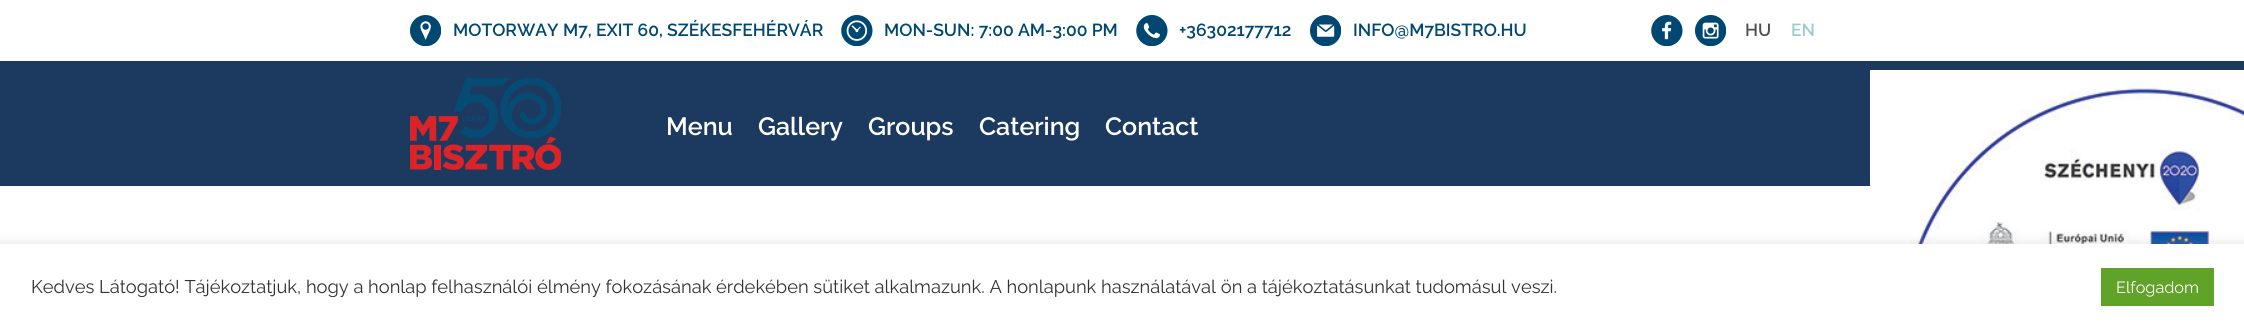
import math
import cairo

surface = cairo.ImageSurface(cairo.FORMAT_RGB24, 2244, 329)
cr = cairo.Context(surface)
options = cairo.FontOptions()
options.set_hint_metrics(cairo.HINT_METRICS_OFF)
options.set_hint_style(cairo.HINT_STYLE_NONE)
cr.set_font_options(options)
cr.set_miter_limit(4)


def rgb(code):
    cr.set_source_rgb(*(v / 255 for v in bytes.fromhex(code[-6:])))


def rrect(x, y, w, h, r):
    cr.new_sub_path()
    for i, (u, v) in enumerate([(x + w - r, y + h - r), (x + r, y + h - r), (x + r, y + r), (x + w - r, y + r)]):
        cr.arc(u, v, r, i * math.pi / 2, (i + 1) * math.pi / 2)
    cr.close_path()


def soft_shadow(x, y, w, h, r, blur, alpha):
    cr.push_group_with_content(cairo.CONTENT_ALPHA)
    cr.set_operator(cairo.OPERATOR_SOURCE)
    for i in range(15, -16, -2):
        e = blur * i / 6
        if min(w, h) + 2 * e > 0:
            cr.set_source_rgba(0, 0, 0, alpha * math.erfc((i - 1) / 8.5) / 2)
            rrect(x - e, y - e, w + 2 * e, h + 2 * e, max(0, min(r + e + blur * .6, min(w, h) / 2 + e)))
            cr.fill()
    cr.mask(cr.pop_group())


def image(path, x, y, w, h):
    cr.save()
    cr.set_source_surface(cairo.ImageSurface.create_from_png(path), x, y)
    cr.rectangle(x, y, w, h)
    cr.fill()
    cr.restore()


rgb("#ffffff")
cr.paint()
image("img/1.png", 410, 15, 31, 31)
image("img/2.png", 841, 15, 32, 31)
image("img/3.png", 1136, 15, 32, 31)
image("img/4.png", 1310, 15, 31, 31)
image("img/5.png", 1651, 15, 32, 31)
image("img/6.png", 1695, 15, 31, 31)
rgb("#1c3a60")
cr.rectangle(0, 61, 2244, 125)
cr.fill()
image("img/7.png", 410, 78, 151, 92)
image("img/8.png", 1870, 70, 374, 174)
rgb("#acabab")
soft_shadow(0, 243, 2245, 86, 0, 6, 0.3)
rgb("#ffffff")
cr.rectangle(0, 244, 2244, 85)
cr.fill()
rgb("#61a229")
cr.rectangle(2101, 268, 113, 38)
cr.fill()
cr.select_font_face("Raleway SemiBold")
cr.set_font_size(17.5)
rgb("#004871")
for x, y, s in [
    (453, 36, "MOTORWAY M7, EXIT 60, SZÉKESFEHÉRVÁR"),
    (884, 36, "MON-SUN: 7:00 AM-3:00 PM"),
    (1179, 36, "+36302177712"),
    (1353, 36, "INFO@M7BISTRO.HU"),
]:
    cr.move_to(x, y)
    cr.show_text(s)
rgb("#505050")
cr.move_to(1745, 36)
cr.show_text("HU")
rgb("#9bccd0")
cr.move_to(1791, 36)
cr.show_text("EN")
cr.set_font_size(25)
rgb("#ffffff")
for x, y, s in [
    (666, 135, "Menu"),
    (758, 135, "Gallery"),
    (868, 135, "Groups"),
    (979, 135, "Catering"),
    (1105, 135, "Contact"),
]:
    cr.move_to(x, y)
    cr.show_text(s)
cr.select_font_face("Raleway")
cr.set_font_size(18.33)
rgb("#333333")
cr.move_to(31, 293)
cr.show_text("Kedves Látogató! Tájékoztatjuk, hogy a honlap felhasználói élmény fokozásának érdekében sütiket alkalmazunk. A honlapunk használatával ön a tájékoztatásunkat tudomásul veszi.")
cr.set_font_size(16.25)
rgb("#ffffff")
cr.move_to(2116, 293)
cr.show_text("Elfogadom")
surface.write_to_png("page.png")
